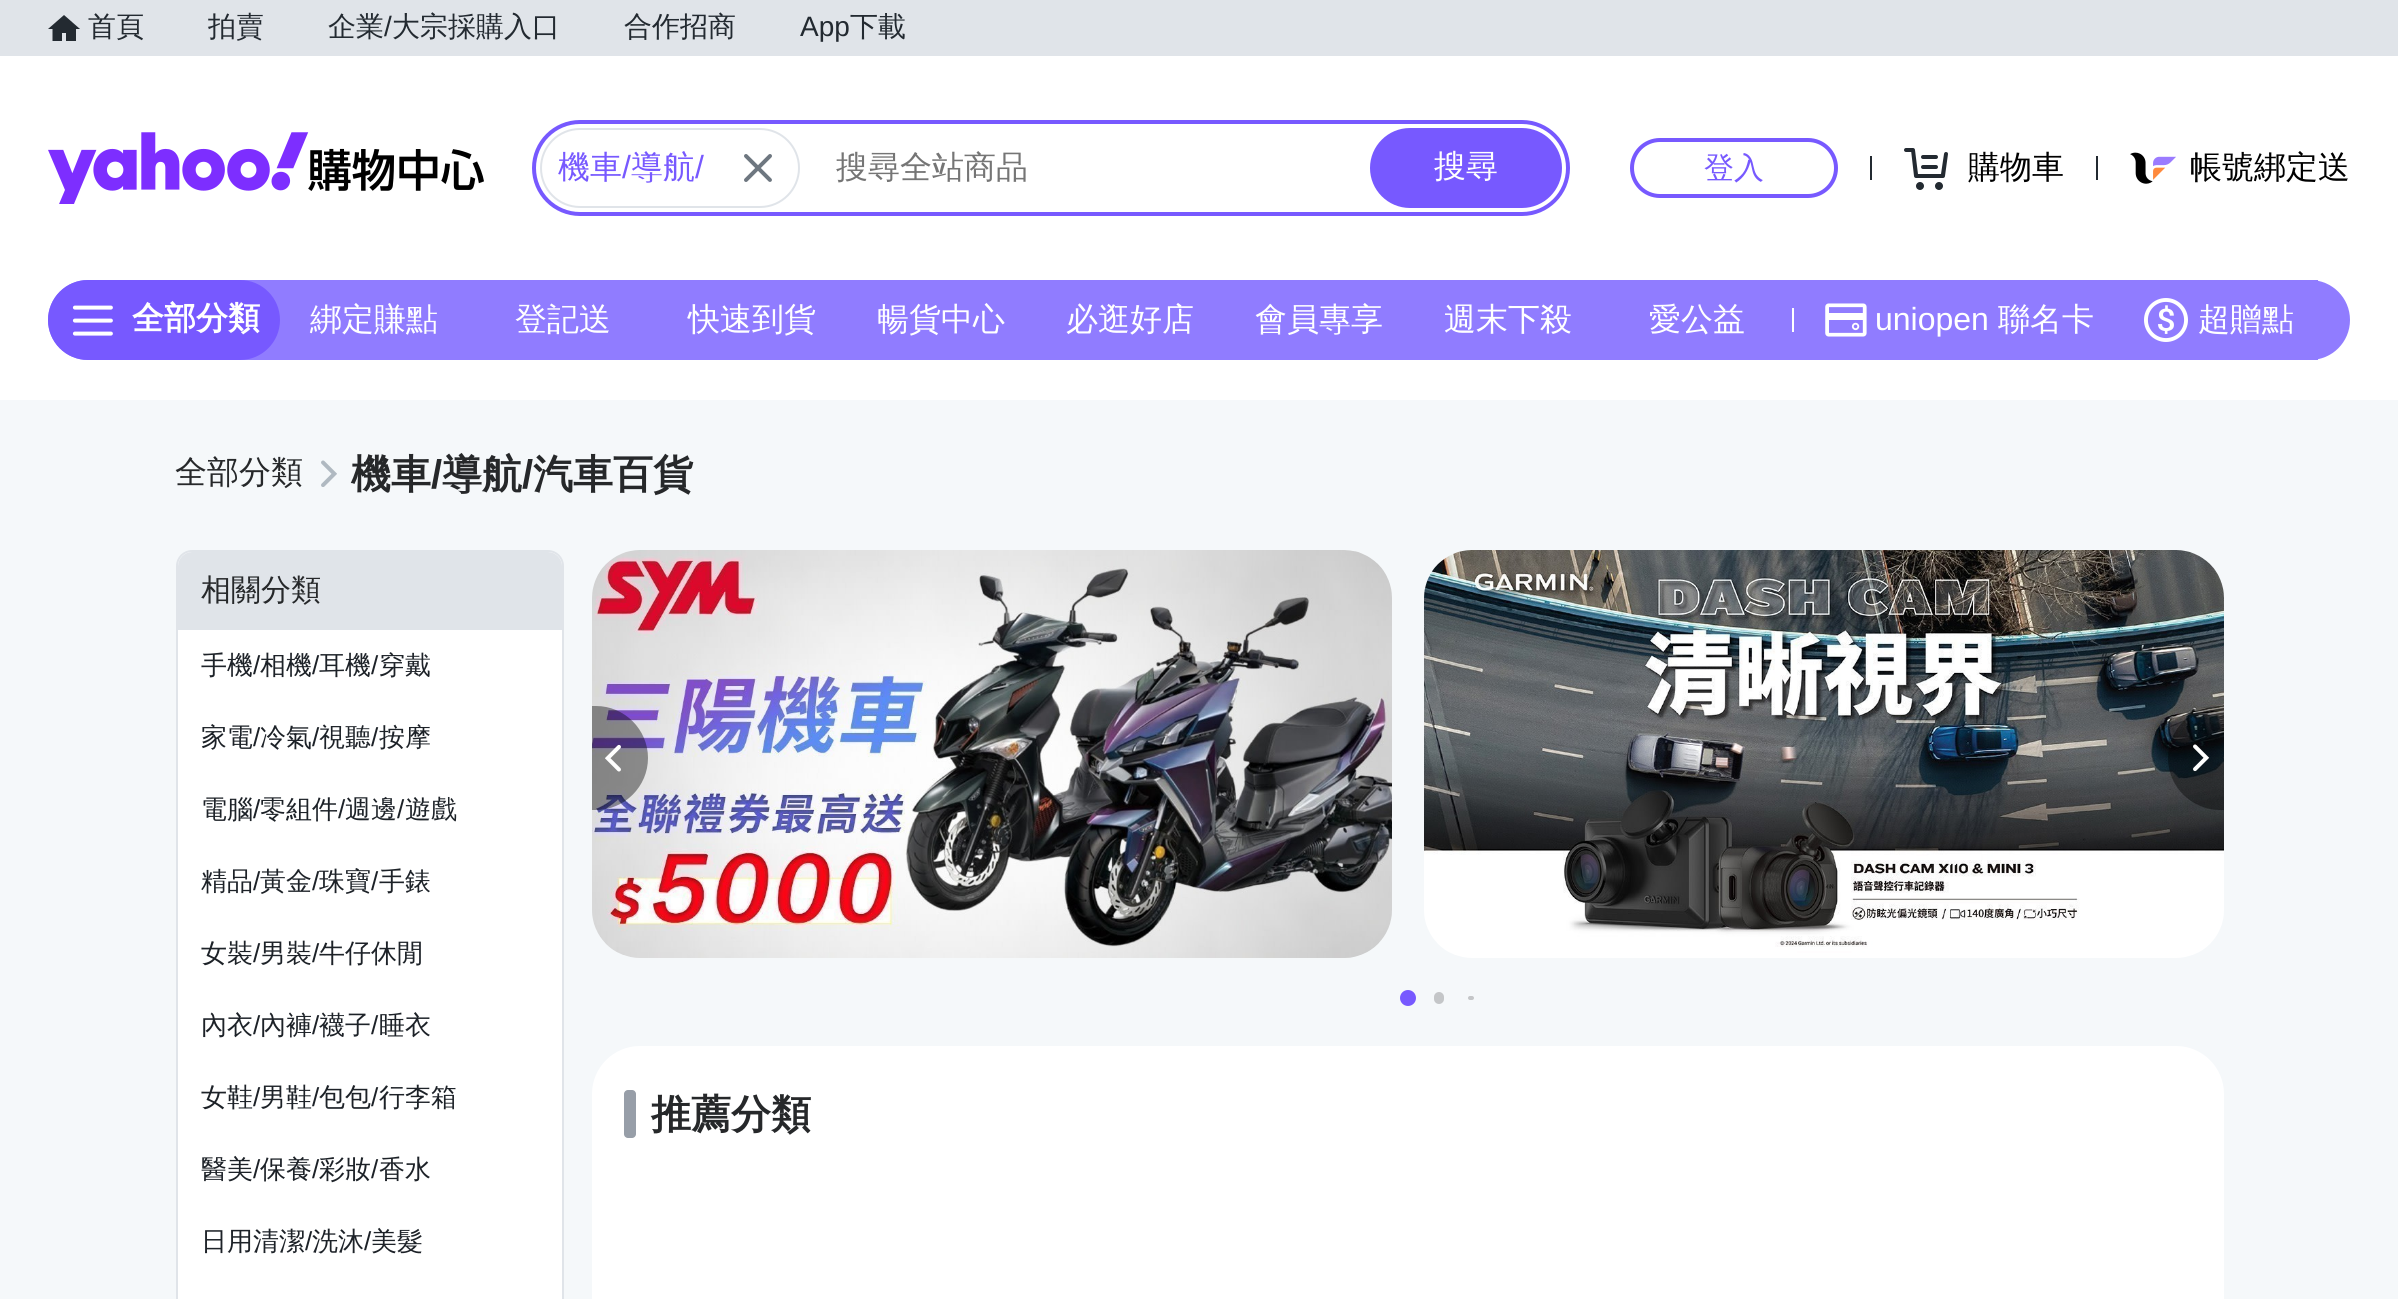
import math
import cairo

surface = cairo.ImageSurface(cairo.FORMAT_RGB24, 2398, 1299)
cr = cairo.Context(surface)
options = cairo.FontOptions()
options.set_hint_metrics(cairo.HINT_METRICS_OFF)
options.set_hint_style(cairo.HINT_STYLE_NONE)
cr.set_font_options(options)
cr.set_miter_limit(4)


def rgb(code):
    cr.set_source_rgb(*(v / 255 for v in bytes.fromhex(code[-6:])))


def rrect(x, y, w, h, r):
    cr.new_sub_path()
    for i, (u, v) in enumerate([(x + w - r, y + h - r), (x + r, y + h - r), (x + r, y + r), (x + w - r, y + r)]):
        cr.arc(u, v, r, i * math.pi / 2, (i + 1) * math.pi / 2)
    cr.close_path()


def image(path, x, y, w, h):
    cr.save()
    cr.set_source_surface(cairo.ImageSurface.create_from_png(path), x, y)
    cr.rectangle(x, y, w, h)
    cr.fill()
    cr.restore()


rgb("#ffffff")
cr.paint()
rgb("#e0e4e9")
cr.rectangle(0, 0, 2398, 56)
cr.fill()
rgb("#232a31")
cr.new_path()
cr.move_to(64, 15)
cr.line_to(48, 29)
cr.line_to(52.5, 29)
cr.line_to(52.5, 41)
cr.line_to(62, 41)
cr.line_to(62, 33)
cr.line_to(66, 33)
cr.line_to(66, 41)
cr.line_to(76, 41)
cr.line_to(76, 29)
cr.line_to(80, 29)
cr.fill()
image("img/1.png", 48, 132, 436, 72)
rrect(534, 122, 1034, 92, 46)
rgb("#7759ff")
cr.set_line_width(4)
cr.stroke()
rrect(541, 129, 258, 78, 39)
rgb("#e0e4e9")
cr.set_line_width(2)
cr.stroke()
image("img/2.png", 744, 154, 28, 28)
rgb("#7759ff")
rrect(1370, 128, 192, 80, 40)
cr.fill()
rrect(1632, 140, 204, 56, 28)
cr.set_line_width(4)
cr.stroke()
rgb("#232a31")
cr.rectangle(1870, 156, 2, 24)
cr.fill()
image("img/3.png", 1904, 148, 44, 42)
cr.rectangle(2096, 156, 2, 24)
cr.fill()
image("img/4.png", 2130, 152, 46, 32)
rgb("#907cff")
rrect(48, 280, 2302, 80, 40)
cr.fill()
rgb("#7759ff")
rrect(48, 280, 232, 80, 40)
cr.fill()
image("img/5.png", 72, 305, 41, 31)
rgb("#ffffff")
cr.rectangle(1792, 308, 2, 24)
cr.fill()
image("img/6.png", 1825, 303, 42, 34)
rgb("#907cff")
cr.rectangle(2310, 280, 8, 80)
cr.fill()
image("img/7.png", 2144, 298, 44, 44)
rgb("#f5f8fa")
cr.rectangle(0, 400, 2398, 899)
cr.fill()
image("img/8.png", 321, 460, 16, 27)
rgb("#ffffff")
rrect(177, 551, 386, 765, 15)
cr.fill_preserve()
rgb("#e0e4e9")
cr.set_line_width(2)
cr.stroke()
cr.new_path()
cr.move_to(192, 552)
cr.line_to(548, 552)
cr.curve_to(555.5, 552, 562, 558.5, 562, 566)
cr.line_to(562, 630)
cr.line_to(178, 630)
cr.line_to(178, 566)
cr.curve_to(178, 558.5, 184.5, 552, 192, 552)
cr.close_path()
cr.fill()
image("img/9.png", 592, 550, 800, 408)
image("img/10.png", 1424, 550, 800, 408)
cr.set_source_rgba(0, 0, 0, 0.4)
cr.new_path()
cr.move_to(592, 706)
cr.line_to(596, 706)
cr.curve_to(624.5, 706, 648, 729.5, 648, 758)
cr.curve_to(648, 786.5, 624.5, 810, 596, 810)
cr.line_to(592, 810)
cr.close_path()
cr.fill()
image("img/11.png", 605, 744, 16, 28)
cr.new_path()
cr.move_to(2220, 706)
cr.line_to(2224, 706)
cr.line_to(2224, 810)
cr.line_to(2220, 810)
cr.curve_to(2191.5, 810, 2168, 786.5, 2168, 758)
cr.curve_to(2168, 729.5, 2191.5, 706, 2220, 706)
cr.close_path()
cr.fill()
image("img/12.png", 2193, 744, 17, 28)
rgb("#7759ff")
cr.arc(1408, 998, 8, 0, 2 * math.pi)
cr.fill()
rgb("#c4c6c8")
rrect(1434, 992, 10, 12, 5)
cr.fill()
rrect(1468, 996, 6, 4, 2)
cr.fill()
rgb("#ffffff")
rrect(592, 1046, 1632, 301, 48)
cr.fill()
rgb("#979ea8")
rrect(624, 1090, 12, 48, 4)
cr.fill()
cr.select_font_face("WenQuanYi Zen Hei Medium")
cr.set_font_size(28)
rgb("#232a31")
for x, y, s in [
    (88, 36, "首頁"),
    (208, 36, "拍賣"),
    (328, 36, "企業"),
]:
    cr.move_to(x, y)
    cr.show_text(s)
cr.select_font_face("Liberation Sans")
cr.move_to(384, 36)
cr.show_text("/")
cr.select_font_face("WenQuanYi Zen Hei Medium")
cr.move_to(392, 36)
cr.show_text("大宗採購入口")
cr.move_to(624, 36)
cr.show_text("合作招商")
cr.select_font_face("Liberation Sans")
cr.move_to(800, 36)
cr.show_text("App")
cr.select_font_face("WenQuanYi Zen Hei Medium")
cr.move_to(850, 36)
cr.show_text("下載")
cr.set_font_size(32)
rgb("#7759ff")
cr.move_to(558, 178)
cr.show_text("機車")
cr.select_font_face("Liberation Sans")
cr.move_to(622, 178)
cr.show_text("/")
cr.select_font_face("WenQuanYi Zen Hei Medium")
cr.move_to(631, 178)
cr.show_text("導航")
cr.select_font_face("Liberation Sans")
cr.move_to(695, 178)
cr.show_text("/")
cr.select_font_face("WenQuanYi Zen Hei Medium")
rgb("#757575")
cr.move_to(836, 178)
cr.show_text("搜尋全站商品")
rgb("#ffffff")
cr.move_to(1434, 177)
cr.show_text("搜尋")
cr.set_font_size(30)
rgb("#7759ff")
cr.move_to(1704, 178)
cr.show_text("登入")
cr.set_font_size(32)
rgb("#000000")
cr.move_to(1968, 178)
cr.show_text("購物車")
cr.move_to(2190, 178)
cr.show_text("帳號綁定送")
cr.select_font_face("WenQuanYi Zen Hei", cairo.FONT_SLANT_NORMAL, cairo.FONT_WEIGHT_BOLD)
rgb("#ffffff")
cr.move_to(132, 329)
cr.show_text("全部分類")
cr.select_font_face("WenQuanYi Zen Hei Medium")
for x, y, s in [
    (310, 330, "綁定賺點"),
    (515, 330, "登記送"),
    (688, 330, "快速到貨"),
    (877, 330, "暢貨中心"),
    (1066, 330, "必逛好店"),
    (1255, 330, "會員專享"),
    (1444, 330, "週末下殺"),
    (1649, 330, "愛公益"),
]:
    cr.move_to(x, y)
    cr.show_text(s)
cr.select_font_face("Liberation Sans")
cr.move_to(1875, 330)
cr.show_text("uniopen")
cr.select_font_face("WenQuanYi Zen Hei Medium")
cr.move_to(1998, 330)
cr.show_text("聯名卡")
cr.move_to(2198, 330)
cr.show_text("超贈點")
rgb("#26282a")
cr.move_to(175, 483)
cr.show_text("全部分類")
cr.select_font_face("WenQuanYi Zen Hei", cairo.FONT_SLANT_NORMAL, cairo.FONT_WEIGHT_BOLD)
cr.set_font_size(40)
cr.move_to(351, 488)
cr.show_text("機車")
cr.select_font_face("Liberation Sans", cairo.FONT_SLANT_NORMAL, cairo.FONT_WEIGHT_BOLD)
cr.move_to(431, 488)
cr.show_text("/")
cr.select_font_face("WenQuanYi Zen Hei", cairo.FONT_SLANT_NORMAL, cairo.FONT_WEIGHT_BOLD)
cr.move_to(442, 488)
cr.show_text("導航")
cr.select_font_face("Liberation Sans", cairo.FONT_SLANT_NORMAL, cairo.FONT_WEIGHT_BOLD)
cr.move_to(522, 488)
cr.show_text("/")
cr.select_font_face("WenQuanYi Zen Hei", cairo.FONT_SLANT_NORMAL, cairo.FONT_WEIGHT_BOLD)
cr.move_to(533, 488)
cr.show_text("汽車百貨")
cr.select_font_face("WenQuanYi Zen Hei Medium")
cr.set_font_size(30)
cr.move_to(201, 600)
cr.show_text("相關分類")
cr.set_font_size(26)
rgb("#1d2228")
cr.move_to(201, 674)
cr.show_text("手機")
cr.select_font_face("Liberation Sans")
cr.move_to(253, 674)
cr.show_text("/")
cr.select_font_face("WenQuanYi Zen Hei Medium")
cr.move_to(260, 674)
cr.show_text("相機")
cr.select_font_face("Liberation Sans")
cr.move_to(312, 674)
cr.show_text("/")
cr.select_font_face("WenQuanYi Zen Hei Medium")
cr.move_to(319, 674)
cr.show_text("耳機")
cr.select_font_face("Liberation Sans")
cr.move_to(371, 674)
cr.show_text("/")
cr.select_font_face("WenQuanYi Zen Hei Medium")
cr.move_to(379, 674)
cr.show_text("穿戴")
cr.move_to(201, 746)
cr.show_text("家電")
cr.select_font_face("Liberation Sans")
cr.move_to(253, 746)
cr.show_text("/")
cr.select_font_face("WenQuanYi Zen Hei Medium")
cr.move_to(260, 746)
cr.show_text("冷氣")
cr.select_font_face("Liberation Sans")
cr.move_to(312, 746)
cr.show_text("/")
cr.select_font_face("WenQuanYi Zen Hei Medium")
cr.move_to(319, 746)
cr.show_text("視聽")
cr.select_font_face("Liberation Sans")
cr.move_to(371, 746)
cr.show_text("/")
cr.select_font_face("WenQuanYi Zen Hei Medium")
cr.move_to(379, 746)
cr.show_text("按摩")
cr.move_to(201, 818)
cr.show_text("電腦")
cr.select_font_face("Liberation Sans")
cr.move_to(253, 818)
cr.show_text("/")
cr.select_font_face("WenQuanYi Zen Hei Medium")
cr.move_to(260, 818)
cr.show_text("零組件")
cr.select_font_face("Liberation Sans")
cr.move_to(338, 818)
cr.show_text("/")
cr.select_font_face("WenQuanYi Zen Hei Medium")
cr.move_to(345, 818)
cr.show_text("週邊")
cr.select_font_face("Liberation Sans")
cr.move_to(397, 818)
cr.show_text("/")
cr.select_font_face("WenQuanYi Zen Hei Medium")
cr.move_to(405, 818)
cr.show_text("遊戲")
cr.move_to(201, 890)
cr.show_text("精品")
cr.select_font_face("Liberation Sans")
cr.move_to(253, 890)
cr.show_text("/")
cr.select_font_face("WenQuanYi Zen Hei Medium")
cr.move_to(260, 890)
cr.show_text("黃金")
cr.select_font_face("Liberation Sans")
cr.move_to(312, 890)
cr.show_text("/")
cr.select_font_face("WenQuanYi Zen Hei Medium")
cr.move_to(319, 890)
cr.show_text("珠寶")
cr.select_font_face("Liberation Sans")
cr.move_to(371, 890)
cr.show_text("/")
cr.select_font_face("WenQuanYi Zen Hei Medium")
cr.move_to(379, 890)
cr.show_text("手錶")
cr.move_to(201, 962)
cr.show_text("女裝")
cr.select_font_face("Liberation Sans")
cr.move_to(253, 962)
cr.show_text("/")
cr.select_font_face("WenQuanYi Zen Hei Medium")
cr.move_to(260, 962)
cr.show_text("男裝")
cr.select_font_face("Liberation Sans")
cr.move_to(312, 962)
cr.show_text("/")
cr.select_font_face("WenQuanYi Zen Hei Medium")
cr.move_to(319, 962)
cr.show_text("牛仔休閒")
cr.move_to(201, 1034)
cr.show_text("內衣")
cr.select_font_face("Liberation Sans")
cr.move_to(253, 1034)
cr.show_text("/")
cr.select_font_face("WenQuanYi Zen Hei Medium")
cr.move_to(260, 1034)
cr.show_text("內褲")
cr.select_font_face("Liberation Sans")
cr.move_to(312, 1034)
cr.show_text("/")
cr.select_font_face("WenQuanYi Zen Hei Medium")
cr.move_to(319, 1034)
cr.show_text("襪子")
cr.select_font_face("Liberation Sans")
cr.move_to(371, 1034)
cr.show_text("/")
cr.select_font_face("WenQuanYi Zen Hei Medium")
cr.move_to(379, 1034)
cr.show_text("睡衣")
cr.move_to(201, 1106)
cr.show_text("女鞋")
cr.select_font_face("Liberation Sans")
cr.move_to(253, 1106)
cr.show_text("/")
cr.select_font_face("WenQuanYi Zen Hei Medium")
cr.move_to(260, 1106)
cr.show_text("男鞋")
cr.select_font_face("Liberation Sans")
cr.move_to(312, 1106)
cr.show_text("/")
cr.select_font_face("WenQuanYi Zen Hei Medium")
cr.move_to(319, 1106)
cr.show_text("包包")
cr.select_font_face("Liberation Sans")
cr.move_to(371, 1106)
cr.show_text("/")
cr.select_font_face("WenQuanYi Zen Hei Medium")
cr.move_to(379, 1106)
cr.show_text("行李箱")
cr.move_to(201, 1178)
cr.show_text("醫美")
cr.select_font_face("Liberation Sans")
cr.move_to(253, 1178)
cr.show_text("/")
cr.select_font_face("WenQuanYi Zen Hei Medium")
cr.move_to(260, 1178)
cr.show_text("保養")
cr.select_font_face("Liberation Sans")
cr.move_to(312, 1178)
cr.show_text("/")
cr.select_font_face("WenQuanYi Zen Hei Medium")
cr.move_to(319, 1178)
cr.show_text("彩妝")
cr.select_font_face("Liberation Sans")
cr.move_to(371, 1178)
cr.show_text("/")
cr.select_font_face("WenQuanYi Zen Hei Medium")
cr.move_to(379, 1178)
cr.show_text("香水")
cr.move_to(201, 1250)
cr.show_text("日用清潔")
cr.select_font_face("Liberation Sans")
cr.move_to(305, 1250)
cr.show_text("/")
cr.select_font_face("WenQuanYi Zen Hei Medium")
cr.move_to(312, 1250)
cr.show_text("洗沐")
cr.select_font_face("Liberation Sans")
cr.move_to(364, 1250)
cr.show_text("/")
cr.select_font_face("WenQuanYi Zen Hei Medium")
cr.move_to(371, 1250)
cr.show_text("美髮")
cr.select_font_face("WenQuanYi Zen Hei", cairo.FONT_SLANT_NORMAL, cairo.FONT_WEIGHT_BOLD)
cr.set_font_size(40)
rgb("#26282a")
cr.move_to(651, 1128)
cr.show_text("推薦分類")
surface.write_to_png("page.png")
